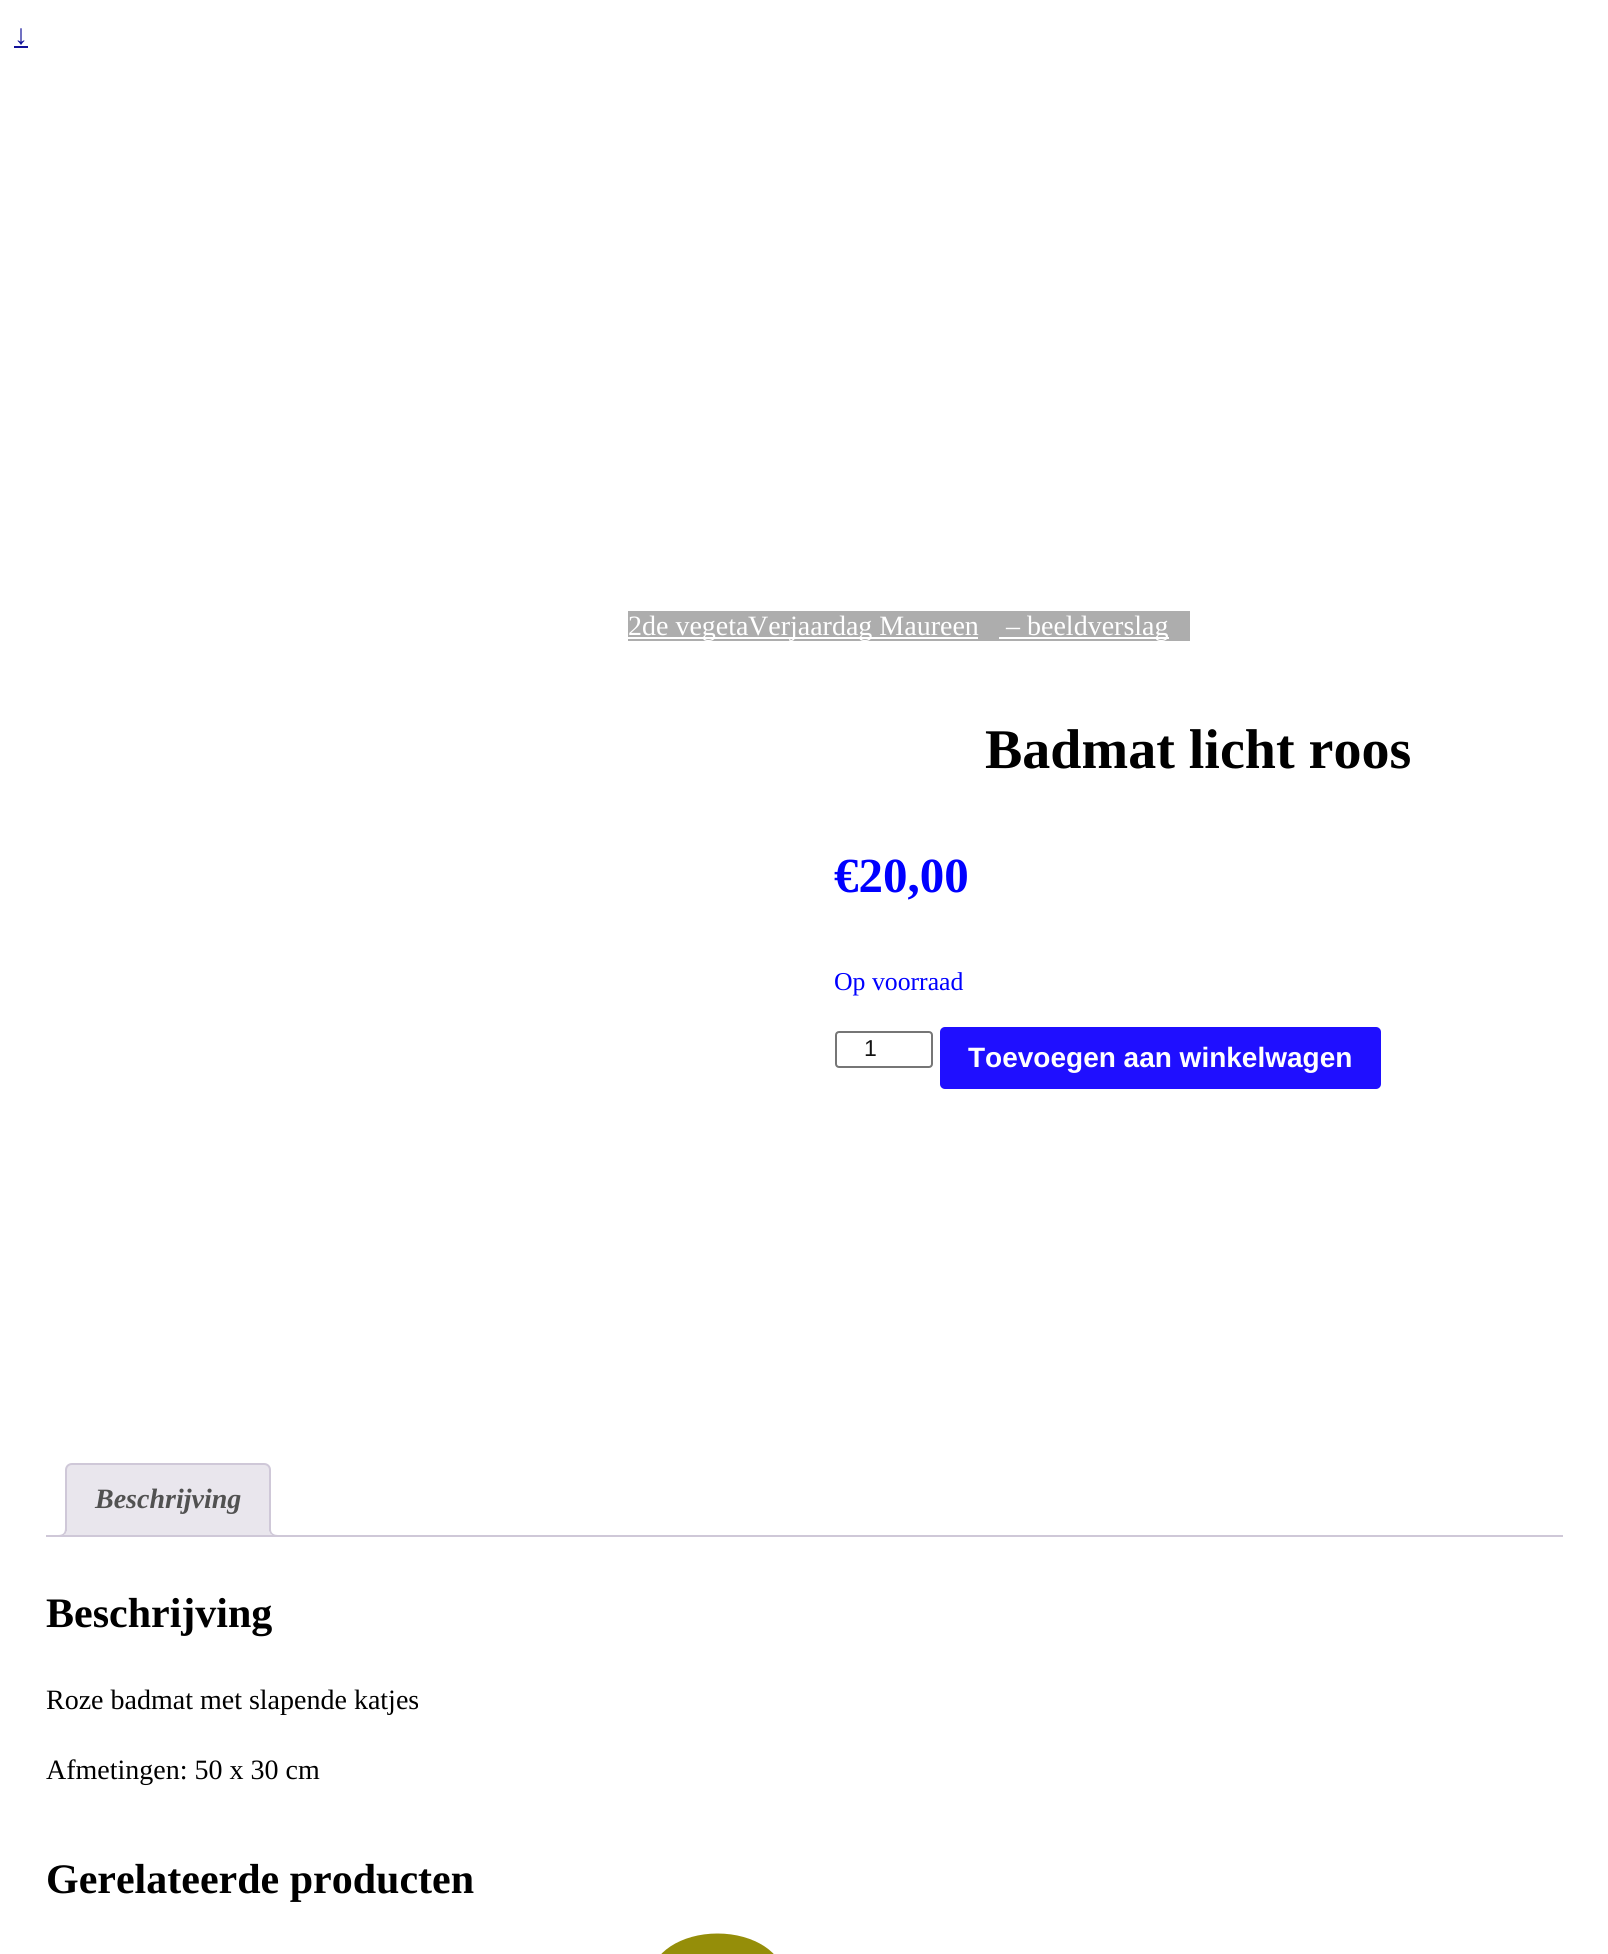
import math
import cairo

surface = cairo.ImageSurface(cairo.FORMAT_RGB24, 1608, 1954)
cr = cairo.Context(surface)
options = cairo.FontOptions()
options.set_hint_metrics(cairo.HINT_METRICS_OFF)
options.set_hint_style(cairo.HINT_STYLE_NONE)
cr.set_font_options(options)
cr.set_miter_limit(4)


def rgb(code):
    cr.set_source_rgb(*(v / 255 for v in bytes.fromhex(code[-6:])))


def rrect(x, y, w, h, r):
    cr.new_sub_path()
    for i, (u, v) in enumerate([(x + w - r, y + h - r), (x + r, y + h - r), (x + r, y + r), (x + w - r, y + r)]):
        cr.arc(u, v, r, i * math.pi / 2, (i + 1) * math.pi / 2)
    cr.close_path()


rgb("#ffffff")
cr.paint()
for x, y, w, h, color in [
    (14, 46, 14, 2, "#111199"),
    (628, 611, 562, 30, "#adadad"),
    (628, 637, 541, 2, "#ffffff"),
    (749, 637, 250, 2, "#adadad"),
    (749, 637, 229, 2, "#ffffff"),
]:
    rgb(color)
    cr.rectangle(x, y, w, h)
    cr.fill()
rrect(836, 1032, 96, 35, 3)
rgb("#767676")
cr.stroke()
rgb("#1f0fff")
rrect(940, 1027, 441, 62, 5)
cr.fill()
rgb("#e9e6ed")
cr.new_path()
cr.move_to(72, 1464)
cr.line_to(264, 1464)
cr.curve_to(267.5, 1464, 270, 1466.5, 270, 1470)
cr.line_to(270, 1536)
cr.line_to(66, 1536)
cr.line_to(66, 1470)
cr.curve_to(66, 1466.5, 68.5, 1464, 72, 1464)
cr.close_path()
cr.fill_preserve()
rgb("#cfc8d8")
cr.stroke()
cr.save()
cr.rectangle(46, 1463, 1517, 74)
cr.clip()
rgb("#e9e6ed")
cr.new_path()
cr.move_to(61, 1536.5)
cr.line_to(61, 1540)
cr.curve_to(67.5, 1540, 70, 1537.5, 70, 1531)
cr.line_to(66.5, 1531)
cr.curve_to(66, 1533.5, 63.5, 1536, 61, 1536.5)
cr.close_path()
cr.fill()
cr.restore()
cr.set_fill_rule(cairo.FILL_RULE_EVEN_ODD)
cr.new_path()
cr.move_to(58, 1528)
cr.line_to(66.5, 1528)
cr.curve_to(66.5, 1534, 64, 1536.5, 58, 1536.5)
cr.close_path()
cr.move_to(58, 1528)
cr.line_to(65, 1528)
cr.curve_to(65, 1533, 63, 1535, 58, 1535)
cr.close_path()
cr.fill()
cr.save()
cr.set_fill_rule(cairo.FILL_RULE_WINDING)
cr.rectangle(46, 1463, 1517, 74)
cr.clip()
rgb("#e9e6ed")
cr.new_path()
cr.move_to(266, 1531)
cr.curve_to(266, 1537.5, 268.5, 1540, 275, 1540)
cr.line_to(275, 1536.5)
cr.curve_to(272.5, 1536, 270, 1533.5, 269.5, 1531)
cr.close_path()
cr.fill()
cr.restore()
cr.new_path()
cr.move_to(269.5, 1528)
cr.line_to(278, 1528)
cr.line_to(278, 1536.5)
cr.curve_to(274, 1536.5, 269.5, 1535, 269.5, 1529.5)
cr.close_path()
cr.move_to(271, 1528)
cr.line_to(278, 1528)
cr.line_to(278, 1535)
cr.curve_to(275, 1535, 271, 1534, 271, 1529.5)
cr.close_path()
cr.fill()
cr.rectangle(46, 1535, 1517, 2)
cr.fill()
rgb("#958e09")
cr.new_path()
cr.move_to(717.5, 1933.5)
cr.curve_to(754, 1933.5, 784, 1953, 784, 1977.5)
cr.curve_to(784, 2002, 754, 2021.5, 717.5, 2021.5)
cr.curve_to(681, 2021.5, 651, 2002, 651, 1977.5)
cr.curve_to(651, 1953, 681, 1933.5, 717.5, 1933.5)
cr.close_path()
cr.fill()
cr.select_font_face("Liberation Serif")
cr.set_font_size(28)
rgb("#111199")
cr.move_to(14, 44)
cr.show_text("↓")
rgb("#ffffff")
for x, y, s in [
    (628, 635, "2de vegeta"),
    (1006, 635, "– beeldverslag"),
    (748, 635, "Verjaardag Maureen"),
]:
    cr.move_to(x, y)
    cr.show_text(s)
cr.select_font_face("Liberation Serif", cairo.FONT_SLANT_NORMAL, cairo.FONT_WEIGHT_BOLD)
cr.set_font_size(56)
rgb("#000000")
cr.move_to(985, 768)
cr.show_text("Badmat licht roos")
cr.set_font_size(49)
rgb("#0000ff")
cr.move_to(834, 892)
cr.show_text("€20,00")
cr.select_font_face("Liberation Serif")
cr.set_font_size(25.75)
cr.move_to(834, 990)
cr.show_text("Op voorraad")
cr.select_font_face("Liberation Sans")
cr.set_font_size(23)
rgb("#121212")
cr.move_to(864, 1056)
cr.show_text("1")
cr.select_font_face("Liberation Sans", cairo.FONT_SLANT_NORMAL, cairo.FONT_WEIGHT_BOLD)
cr.set_font_size(28)
rgb("#ffffff")
cr.move_to(968, 1067)
cr.show_text("Toevoegen aan winkelwagen")
cr.select_font_face("Liberation Serif", cairo.FONT_SLANT_ITALIC, cairo.FONT_WEIGHT_BOLD)
rgb("#515151")
cr.move_to(95, 1508)
cr.show_text("Beschrijving")
cr.select_font_face("Liberation Serif", cairo.FONT_SLANT_NORMAL, cairo.FONT_WEIGHT_BOLD)
cr.set_font_size(42)
rgb("#000000")
cr.move_to(46, 1627)
cr.show_text("Beschrijving")
cr.select_font_face("Liberation Serif")
cr.set_font_size(28)
cr.move_to(46, 1709)
cr.show_text("Roze badmat met slapende katjes")
cr.move_to(46, 1779)
cr.show_text("Afmetingen: 50 x 30 cm")
cr.select_font_face("Liberation Serif", cairo.FONT_SLANT_NORMAL, cairo.FONT_WEIGHT_BOLD)
cr.set_font_size(42)
cr.move_to(46, 1893)
cr.show_text("Gerelateerde producten")
surface.write_to_png("page.png")
